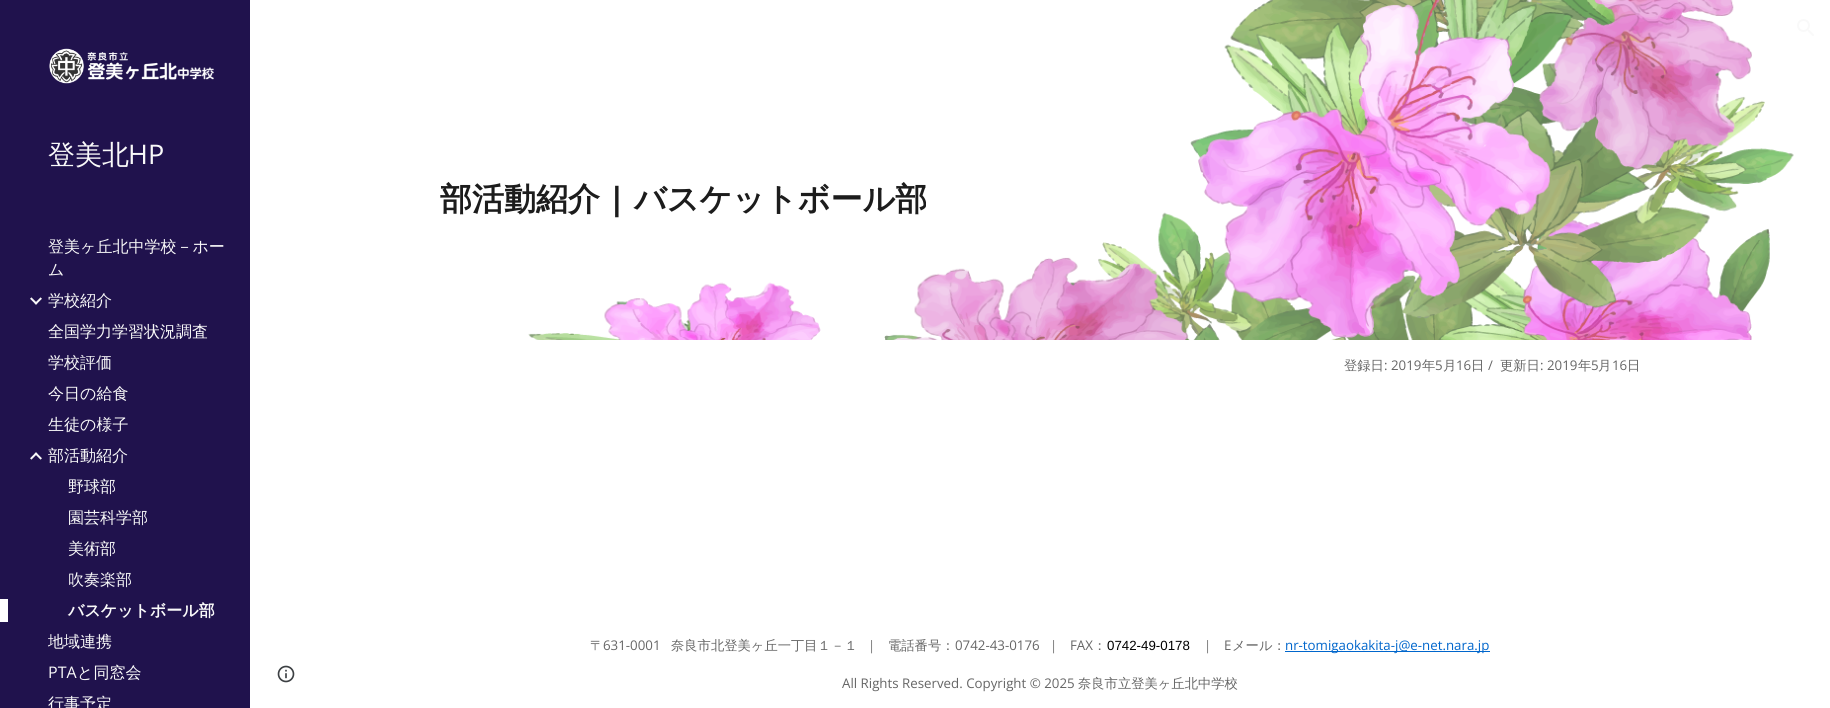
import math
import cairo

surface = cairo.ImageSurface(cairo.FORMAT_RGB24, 1830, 708)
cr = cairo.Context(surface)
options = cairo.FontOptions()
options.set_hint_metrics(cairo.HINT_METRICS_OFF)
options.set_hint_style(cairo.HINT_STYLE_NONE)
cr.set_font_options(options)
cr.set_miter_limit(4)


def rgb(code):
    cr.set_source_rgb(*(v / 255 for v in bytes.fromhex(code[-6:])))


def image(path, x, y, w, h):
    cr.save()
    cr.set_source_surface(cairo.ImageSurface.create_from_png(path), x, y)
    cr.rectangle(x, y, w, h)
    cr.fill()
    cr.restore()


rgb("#ffffff")
cr.paint()
image("img/1.png", 1797, 19, 17, 17)
rgb("#20124d")
cr.rectangle(0, 0, 250, 708)
cr.fill()
image("img/2.png", 49, 48, 165, 36)
image("img/3.png", 30, 297, 12, 8)
image("img/4.png", 30, 452, 12, 8)
rgb("#ffffff")
cr.rectangle(0, 599, 8, 23)
cr.fill()
image("img/5.png", 528, 0, 1266, 340)
image("img/6.png", 277, 665, 18, 18)
rgb("#0066cc")
cr.rectangle(1285, 651, 205, 1)
cr.fill()
cr.select_font_face("WenQuanYi Zen Hei Medium")
cr.set_font_size(27)
rgb("#f9f9f9")
cr.move_to(48, 164)
cr.show_text("登美北")
cr.select_font_face("Open Sans")
cr.move_to(128, 164)
cr.show_text("HP")
cr.select_font_face("WenQuanYi Zen Hei Medium")
cr.set_font_size(16)
for x, y, s in [
    (48, 252, "登美ヶ丘北中学校－ホー"),
    (48, 275, "ム"),
    (48, 306, "学校紹介"),
    (48, 337, "全国学力学習状況調査"),
    (48, 368, "学校評価"),
    (48, 399, "今日の給食"),
    (48, 430, "生徒の様子"),
    (48, 461, "部活動紹介"),
    (68, 492, "野球部"),
    (68, 523, "園芸科学部"),
    (68, 554, "美術部"),
    (68, 585, "吹奏楽部"),
]:
    cr.move_to(x, y)
    cr.show_text(s)
cr.select_font_face("WenQuanYi Zen Hei", cairo.FONT_SLANT_NORMAL, cairo.FONT_WEIGHT_BOLD)
cr.move_to(68, 616)
cr.show_text("バスケットボール部")
cr.select_font_face("WenQuanYi Zen Hei Medium")
cr.move_to(48, 647)
cr.show_text("地域連携")
cr.select_font_face("Open Sans")
cr.move_to(48, 678)
cr.show_text("PTA")
cr.select_font_face("WenQuanYi Zen Hei Medium")
cr.move_to(77, 678)
cr.show_text("と同窓会")
cr.move_to(48, 709)
cr.show_text("行事予定")
cr.select_font_face("WenQuanYi Zen Hei", cairo.FONT_SLANT_NORMAL, cairo.FONT_WEIGHT_BOLD)
cr.set_font_size(32)
rgb("#1c1c1c")
cr.move_to(440, 210)
cr.show_text("部活動紹介")
cr.select_font_face("Open Sans", cairo.FONT_SLANT_NORMAL, cairo.FONT_WEIGHT_BOLD)
cr.move_to(608, 210)
cr.show_text("|")
cr.select_font_face("WenQuanYi Zen Hei", cairo.FONT_SLANT_NORMAL, cairo.FONT_WEIGHT_BOLD)
cr.move_to(634, 210)
cr.show_text("バスケットボール部")
cr.select_font_face("WenQuanYi Zen Hei Medium")
cr.set_font_size(13.3)
rgb("#666666")
cr.move_to(1344, 370)
cr.show_text("登録日")
cr.select_font_face("Open Sans")
cr.move_to(1384, 370)
cr.show_text(": 2019")
cr.select_font_face("WenQuanYi Zen Hei Medium")
cr.move_to(1422, 370)
cr.show_text("年")
cr.select_font_face("Open Sans")
cr.move_to(1435, 370)
cr.show_text("5")
cr.select_font_face("WenQuanYi Zen Hei Medium")
cr.move_to(1443, 370)
cr.show_text("月")
cr.select_font_face("Open Sans")
cr.move_to(1456, 370)
cr.show_text("16")
cr.select_font_face("WenQuanYi Zen Hei Medium")
cr.move_to(1471, 370)
cr.show_text("日")
cr.select_font_face("Open Sans")
cr.move_to(1488, 370)
cr.show_text("/")
cr.select_font_face("WenQuanYi Zen Hei Medium")
cr.move_to(1500, 370)
cr.show_text("更新日")
cr.select_font_face("Open Sans")
cr.move_to(1540, 370)
cr.show_text(": 2019")
cr.select_font_face("WenQuanYi Zen Hei Medium")
cr.move_to(1578, 370)
cr.show_text("年")
cr.select_font_face("Open Sans")
cr.move_to(1591, 370)
cr.show_text("5")
cr.select_font_face("WenQuanYi Zen Hei Medium")
cr.move_to(1598, 370)
cr.show_text("月")
cr.select_font_face("Open Sans")
cr.move_to(1612, 370)
cr.show_text("16")
cr.select_font_face("WenQuanYi Zen Hei Medium")
cr.move_to(1627, 370)
cr.show_text("日")
cr.move_to(590, 650)
cr.show_text("〒")
cr.select_font_face("Open Sans")
cr.move_to(603, 650)
cr.show_text("631-0001")
cr.select_font_face("WenQuanYi Zen Hei Medium")
for x, y, s in [
    (671, 650, "奈良市北登美ヶ丘一丁目１－１"),
    (865, 650, "｜"),
    (888, 650, "電話番号："),
]:
    cr.move_to(x, y)
    cr.show_text(s)
cr.select_font_face("Open Sans")
cr.move_to(955, 650)
cr.show_text("0742-43-0176")
cr.select_font_face("WenQuanYi Zen Hei Medium")
cr.move_to(1047, 650)
cr.show_text("｜")
cr.select_font_face("Open Sans")
cr.move_to(1070, 650)
cr.show_text("FAX")
cr.select_font_face("WenQuanYi Zen Hei Medium")
cr.move_to(1093, 650)
cr.show_text("：")
cr.select_font_face("Liberation Sans")
rgb("#000000")
cr.move_to(1107, 650)
cr.show_text("0742-49-0178")
cr.select_font_face("WenQuanYi Zen Hei Medium")
rgb("#666666")
cr.move_to(1201, 650)
cr.show_text("｜")
cr.select_font_face("Open Sans")
cr.move_to(1224, 650)
cr.show_text("E")
cr.select_font_face("WenQuanYi Zen Hei Medium")
cr.move_to(1232, 650)
cr.show_text("メール：")
cr.select_font_face("Open Sans")
rgb("#0066cc")
cr.move_to(1285, 650)
cr.show_text("nr-tomigaokakita-j@e-net.nara.jp")
rgb("#666666")
cr.move_to(842, 688)
cr.show_text("All Rights Reserved. Copyright © 2025")
cr.select_font_face("WenQuanYi Zen Hei Medium")
cr.move_to(1078, 688)
cr.show_text("奈良市立登美ヶ丘北中学校")
surface.write_to_png("page.png")
